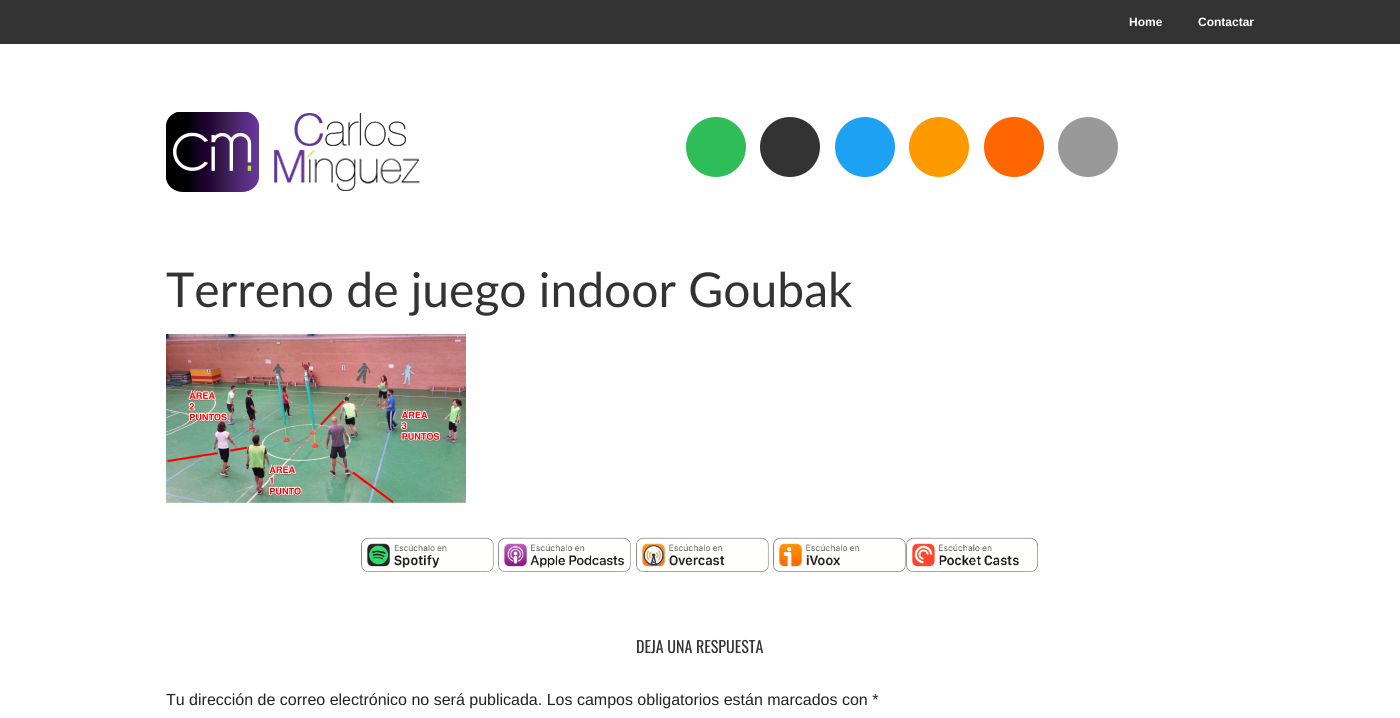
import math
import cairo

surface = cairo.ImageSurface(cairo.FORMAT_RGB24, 1400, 718)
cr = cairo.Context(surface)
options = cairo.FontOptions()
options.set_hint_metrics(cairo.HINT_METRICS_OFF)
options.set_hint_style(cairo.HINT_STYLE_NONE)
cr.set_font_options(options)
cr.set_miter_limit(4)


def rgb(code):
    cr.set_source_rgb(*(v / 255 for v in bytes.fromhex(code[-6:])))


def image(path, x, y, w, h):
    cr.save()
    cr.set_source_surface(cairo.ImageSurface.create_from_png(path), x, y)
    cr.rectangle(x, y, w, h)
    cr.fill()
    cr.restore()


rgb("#ffffff")
cr.paint()
rgb("#333333")
cr.rectangle(0, 0, 1400, 44)
cr.fill()
image("img/1.png", 166, 112, 254, 80)
rgb("#2ebd59")
cr.arc(716, 147, 30, 0, 2 * math.pi)
cr.fill()
rgb("#333333")
cr.arc(790, 147, 30, 0, 2 * math.pi)
cr.fill()
rgb("#1da1f2")
cr.arc(865, 147, 30, 0, 2 * math.pi)
cr.fill()
rgb("#ff9900")
cr.arc(939, 147, 30, 0, 2 * math.pi)
cr.fill()
rgb("#ff6600")
cr.arc(1014, 147, 30, 0, 2 * math.pi)
cr.fill()
rgb("#999999")
cr.arc(1088, 147, 30, 0, 2 * math.pi)
cr.fill()
image("img/2.png", 166, 334, 300, 169)
image("img/3.png", 361, 537, 133, 35)
image("img/4.png", 498, 537, 133, 35)
image("img/5.png", 636, 537, 133, 35)
image("img/6.png", 773, 537, 133, 35)
image("img/7.png", 906, 537, 132, 35)
cr.select_font_face("Liberation Sans", cairo.FONT_SLANT_NORMAL, cairo.FONT_WEIGHT_BOLD)
cr.set_font_size(12)
rgb("#ffffff")
cr.move_to(1129, 26)
cr.show_text("Home")
cr.move_to(1198, 26)
cr.show_text("Contactar")
cr.select_font_face("Lato")
cr.set_font_size(48)
rgb("#333333")
cr.move_to(166, 307)
cr.show_text("Terreno de juego indoor Goubak")
cr.select_font_face("Oswald")
cr.set_font_size(16)
cr.move_to(636, 653)
cr.show_text("DEJA UNA RESPUESTA")
cr.select_font_face("Liberation Sans")
rgb("#222222")
cr.move_to(166, 705)
cr.show_text("Tu dirección de correo electrónico no será publicada. Los campos obligatorios están marcados con *")
surface.write_to_png("page.png")
